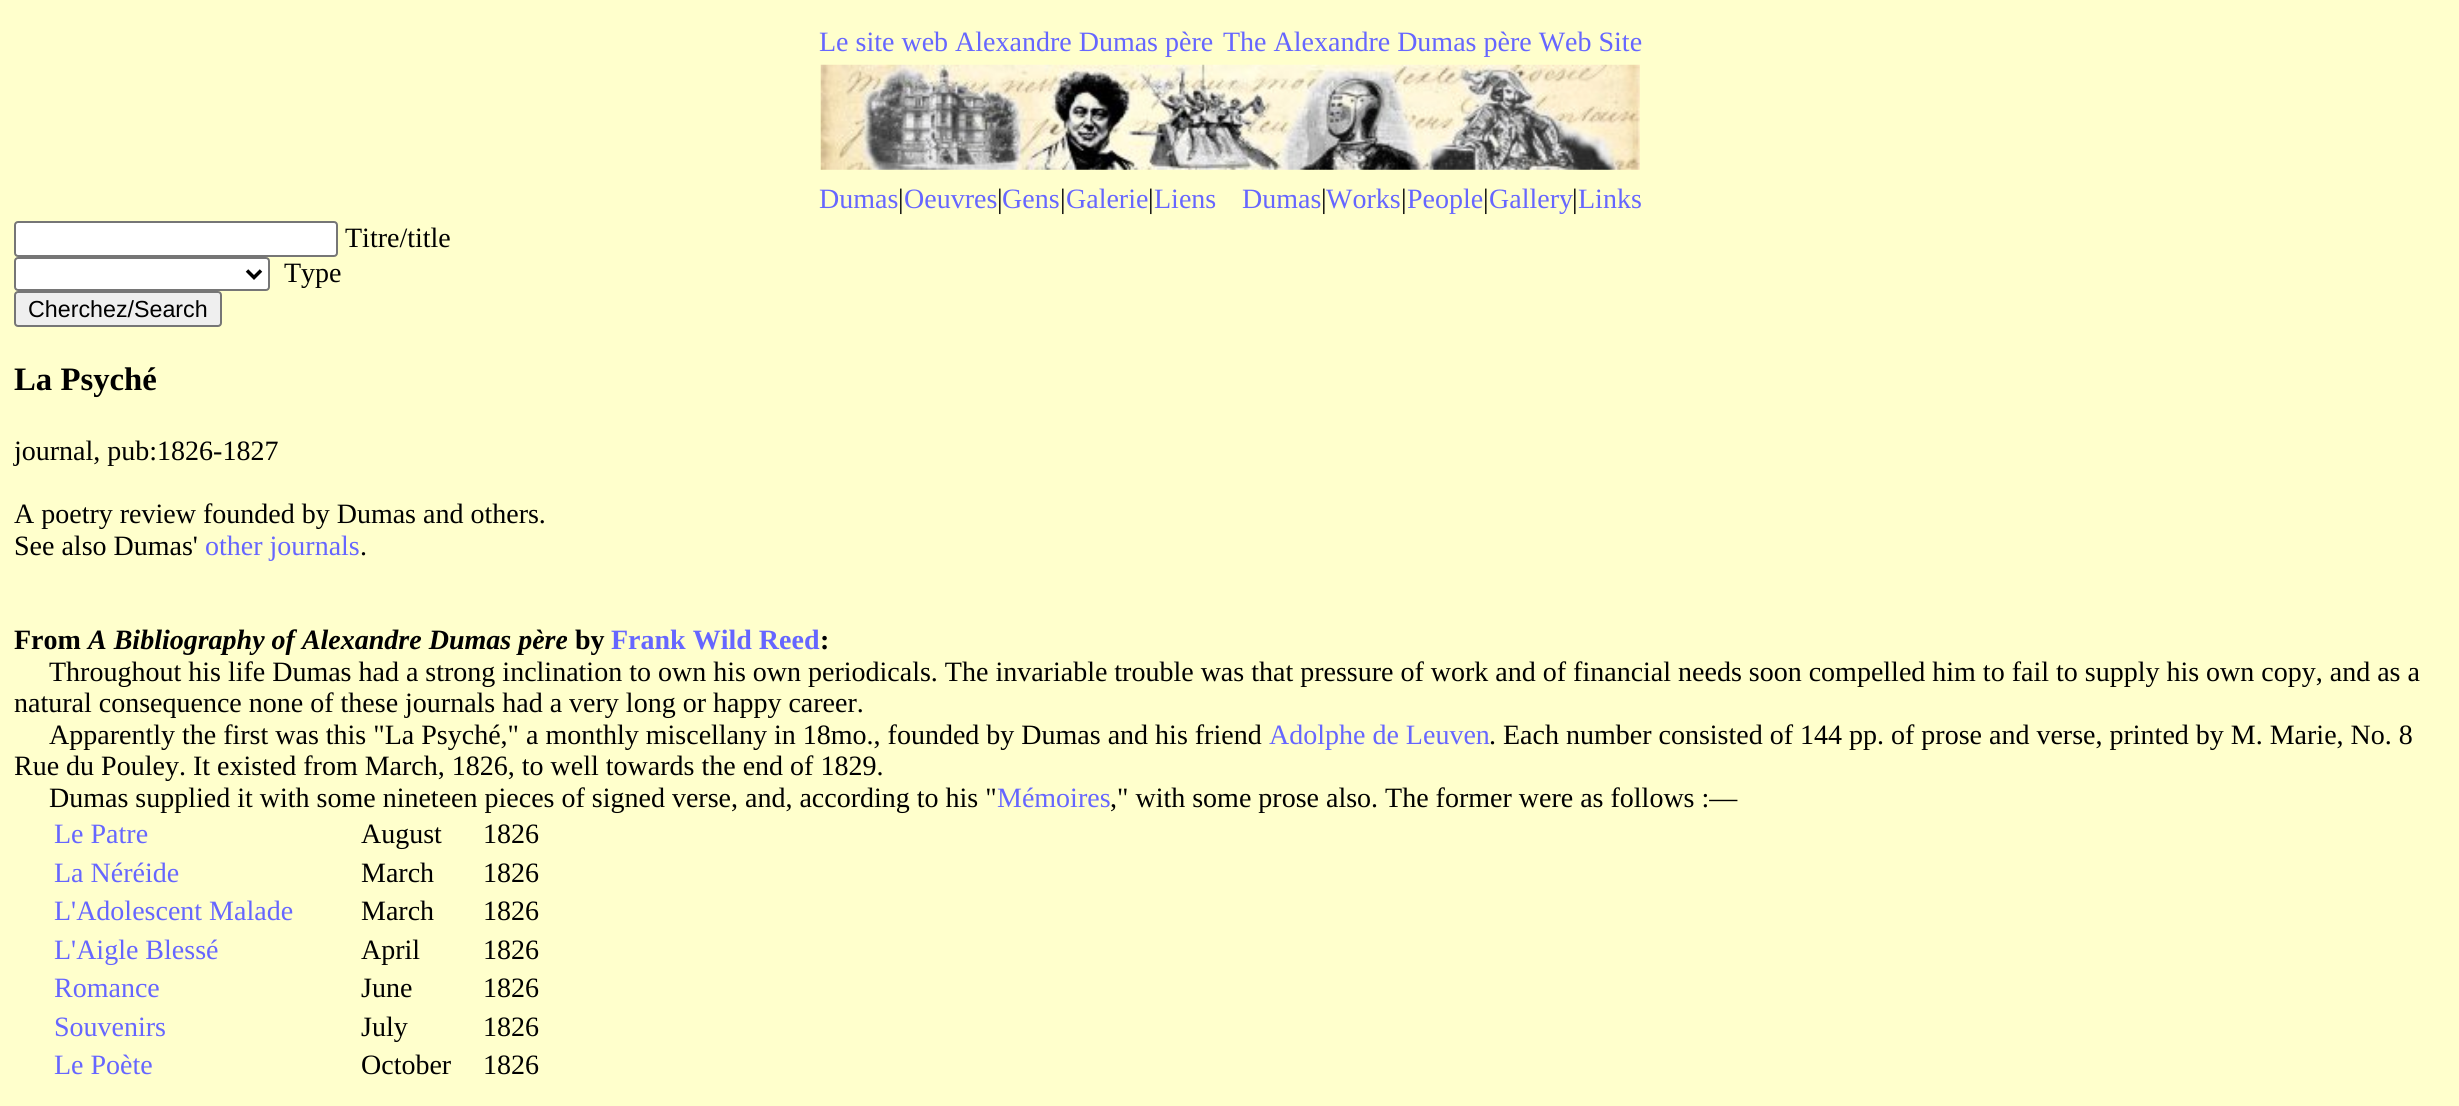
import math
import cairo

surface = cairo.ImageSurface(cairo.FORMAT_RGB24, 2459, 1106)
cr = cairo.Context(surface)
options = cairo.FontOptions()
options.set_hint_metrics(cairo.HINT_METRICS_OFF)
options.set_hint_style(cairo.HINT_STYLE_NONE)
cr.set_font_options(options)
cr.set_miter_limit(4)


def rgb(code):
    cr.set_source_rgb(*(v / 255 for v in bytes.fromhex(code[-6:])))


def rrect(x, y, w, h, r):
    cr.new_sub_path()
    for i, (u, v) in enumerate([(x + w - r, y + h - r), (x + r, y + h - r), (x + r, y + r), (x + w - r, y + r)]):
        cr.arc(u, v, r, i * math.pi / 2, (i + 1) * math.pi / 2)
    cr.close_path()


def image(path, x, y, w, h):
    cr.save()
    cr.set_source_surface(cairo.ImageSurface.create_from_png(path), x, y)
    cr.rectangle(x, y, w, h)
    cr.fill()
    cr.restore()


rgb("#ffffcc")
cr.paint()
image("img/1.png", 820, 64, 820, 106)
rgb("#ffffff")
rrect(15, 222, 322, 34, 3)
cr.fill_preserve()
rgb("#767676")
cr.stroke()
rgb("#ffffff")
rrect(15, 258, 254, 32, 3)
cr.fill_preserve()
rgb("#767676")
cr.stroke()
cr.new_path()
cr.move_to(247, 270.5)
cr.line_to(254, 277.5)
cr.line_to(261, 270.5)
rgb("#000000")
cr.set_line_width(3.5)
cr.stroke()
rgb("#efefef")
rrect(15, 292, 206, 34, 3)
cr.fill_preserve()
rgb("#767676")
cr.set_line_width(2)
cr.stroke()
cr.select_font_face("Liberation Serif")
cr.set_font_size(28)
rgb("#6666ff")
for x, y, s in [
    (819, 51, "Le site web Alexandre Dumas père"),
    (1223, 51, "The Alexandre Dumas père Web Site"),
    (819, 208, "Dumas"),
]:
    cr.move_to(x, y)
    cr.show_text(s)
rgb("#000000")
cr.move_to(898, 208)
cr.show_text("|")
rgb("#6666ff")
cr.move_to(904, 208)
cr.show_text("Oeuvres")
rgb("#000000")
cr.move_to(997, 208)
cr.show_text("|")
rgb("#6666ff")
cr.move_to(1002, 208)
cr.show_text("Gens")
rgb("#000000")
cr.move_to(1060, 208)
cr.show_text("|")
rgb("#6666ff")
cr.move_to(1066, 208)
cr.show_text("Galerie")
rgb("#000000")
cr.move_to(1148, 208)
cr.show_text("|")
rgb("#6666ff")
cr.move_to(1154, 208)
cr.show_text("Liens")
cr.move_to(1242, 208)
cr.show_text("Dumas")
rgb("#000000")
cr.move_to(1321, 208)
cr.show_text("|")
rgb("#6666ff")
cr.move_to(1326, 208)
cr.show_text("Works")
rgb("#000000")
cr.move_to(1401, 208)
cr.show_text("|")
rgb("#6666ff")
cr.move_to(1407, 208)
cr.show_text("People")
rgb("#000000")
cr.move_to(1483, 208)
cr.show_text("|")
rgb("#6666ff")
cr.move_to(1489, 208)
cr.show_text("Gallery")
rgb("#000000")
cr.move_to(1572, 208)
cr.show_text("|")
rgb("#6666ff")
cr.move_to(1578, 208)
cr.show_text("Links")
rgb("#000000")
cr.move_to(345, 247)
cr.show_text("Titre/title")
cr.move_to(284, 282)
cr.show_text("Type")
cr.select_font_face("Liberation Sans")
cr.set_font_size(23.25)
cr.move_to(28, 317)
cr.show_text("Cherchez/Search")
cr.select_font_face("Liberation Serif", cairo.FONT_SLANT_NORMAL, cairo.FONT_WEIGHT_BOLD)
cr.set_font_size(32.75)
cr.move_to(14, 390)
cr.show_text("La Psyché")
cr.select_font_face("Liberation Serif")
cr.set_font_size(28)
for x, y, s in [
    (14, 460, "journal, pub:1826-1827"),
    (14, 523, "A poetry review founded by Dumas and others."),
    (14, 555, "See also Dumas'"),
]:
    cr.move_to(x, y)
    cr.show_text(s)
rgb("#6666ff")
cr.move_to(205, 555)
cr.show_text("other journals")
rgb("#000000")
cr.move_to(360, 555)
cr.show_text(".")
cr.select_font_face("Liberation Serif", cairo.FONT_SLANT_NORMAL, cairo.FONT_WEIGHT_BOLD)
cr.move_to(14, 649)
cr.show_text("From")
cr.select_font_face("Liberation Serif", cairo.FONT_SLANT_ITALIC, cairo.FONT_WEIGHT_BOLD)
cr.move_to(88, 649)
cr.show_text("A Bibliography of Alexandre Dumas père")
cr.select_font_face("Liberation Serif", cairo.FONT_SLANT_NORMAL, cairo.FONT_WEIGHT_BOLD)
cr.move_to(575, 649)
cr.show_text("by")
rgb("#6666ff")
cr.move_to(611, 649)
cr.show_text("Frank Wild Reed")
rgb("#000000")
cr.move_to(820, 649)
cr.show_text(":")
cr.select_font_face("Liberation Serif")
for x, y, s in [
    (49, 681, "Throughout his life Dumas had a strong inclination to own his own periodicals. The invariable trouble was that pressure of work and of financial needs soon compelled him to fail to supply his own copy, and as a"),
    (14, 712, "natural consequence none of these journals had a very long or happy career."),
    (49, 744, "Apparently the first was this \"La Psyché,\" a monthly miscellany in 18mo., founded by Dumas and his friend"),
]:
    cr.move_to(x, y)
    cr.show_text(s)
rgb("#6666ff")
cr.move_to(1269, 744)
cr.show_text("Adolphe de Leuven")
rgb("#000000")
for x, y, s in [
    (1489, 744, ". Each number consisted of 144 pp. of prose and verse, printed by M. Marie, No. 8"),
    (14, 775, "Rue du Pouley. It existed from March, 1826, to well towards the end of 1829."),
    (49, 807, "Dumas supplied it with some nineteen pieces of signed verse, and, according to his \""),
]:
    cr.move_to(x, y)
    cr.show_text(s)
rgb("#6666ff")
cr.move_to(997, 807)
cr.show_text("Mémoires")
rgb("#000000")
cr.move_to(1110, 807)
cr.show_text(",\" with some prose also. The former were as follows :—")
rgb("#6666ff")
cr.move_to(54, 843)
cr.show_text("Le Patre")
rgb("#000000")
cr.move_to(361, 843)
cr.show_text("August")
cr.move_to(483, 843)
cr.show_text("1826")
rgb("#6666ff")
cr.move_to(54, 882)
cr.show_text("La Néréide")
rgb("#000000")
cr.move_to(361, 882)
cr.show_text("March")
cr.move_to(483, 882)
cr.show_text("1826")
rgb("#6666ff")
cr.move_to(54, 920)
cr.show_text("L'Adolescent Malade")
rgb("#000000")
cr.move_to(361, 920)
cr.show_text("March")
cr.move_to(483, 920)
cr.show_text("1826")
rgb("#6666ff")
cr.move_to(54, 959)
cr.show_text("L'Aigle Blessé")
rgb("#000000")
cr.move_to(361, 959)
cr.show_text("April")
cr.move_to(483, 959)
cr.show_text("1826")
rgb("#6666ff")
cr.move_to(54, 997)
cr.show_text("Romance")
rgb("#000000")
cr.move_to(361, 997)
cr.show_text("June")
cr.move_to(483, 997)
cr.show_text("1826")
rgb("#6666ff")
cr.move_to(54, 1036)
cr.show_text("Souvenirs")
rgb("#000000")
cr.move_to(361, 1036)
cr.show_text("July")
cr.move_to(483, 1036)
cr.show_text("1826")
rgb("#6666ff")
cr.move_to(54, 1074)
cr.show_text("Le Poète")
rgb("#000000")
cr.move_to(361, 1074)
cr.show_text("October")
cr.move_to(483, 1074)
cr.show_text("1826")
surface.write_to_png("page.png")
